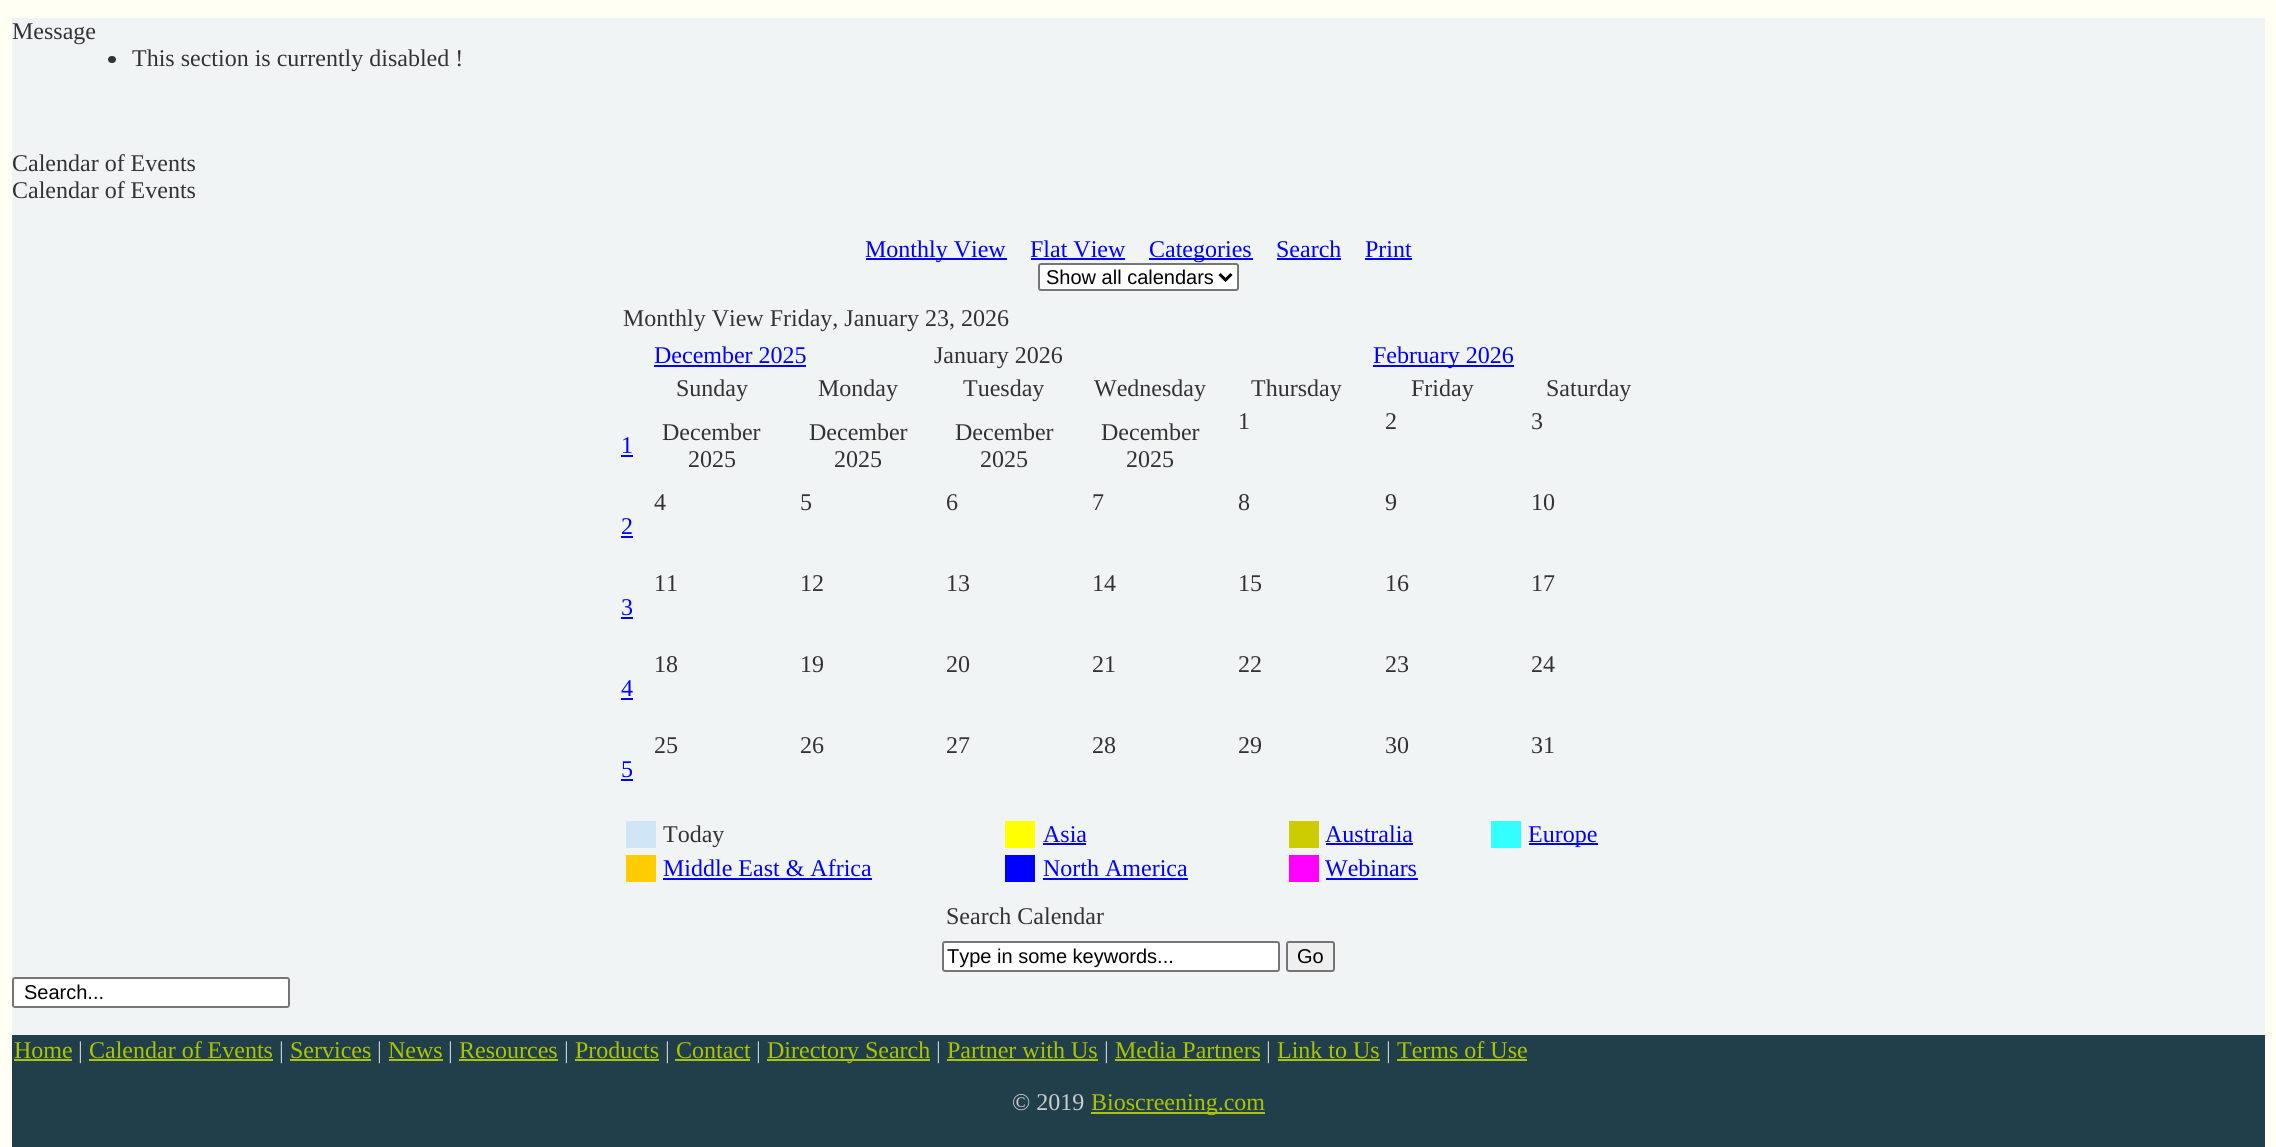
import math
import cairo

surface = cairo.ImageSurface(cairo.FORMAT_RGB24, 2276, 1147)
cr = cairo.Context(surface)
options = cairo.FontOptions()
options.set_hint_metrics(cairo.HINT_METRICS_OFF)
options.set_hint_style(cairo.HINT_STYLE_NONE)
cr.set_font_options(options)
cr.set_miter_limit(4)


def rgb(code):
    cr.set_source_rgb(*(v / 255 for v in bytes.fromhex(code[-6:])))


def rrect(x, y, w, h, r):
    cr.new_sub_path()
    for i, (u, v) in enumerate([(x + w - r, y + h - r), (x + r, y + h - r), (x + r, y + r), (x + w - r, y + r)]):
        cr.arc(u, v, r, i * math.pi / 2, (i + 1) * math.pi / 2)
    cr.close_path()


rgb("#fffff3")
cr.paint()
rgb("#f1f4f4")
cr.rectangle(12, 18, 2253, 1017)
cr.fill()
rgb("#333333")
rrect(108, 56, 8, 7, 3.5)
cr.fill()
for x, y, w, h, color in [
    (866, 258, 141, 2, "#0000ff"),
    (1031, 258, 94, 2, "#0000ff"),
    (1149, 258, 104, 2, "#0000ff"),
    (1277, 258, 64, 2, "#0000ff"),
    (1365, 258, 47, 2, "#0000ff"),
]:
    rgb(color)
    cr.rectangle(x, y, w, h)
    cr.fill()
rgb("#ffffff")
rrect(1039, 264, 199, 26, 2)
cr.fill_preserve()
rgb("#767676")
cr.stroke()
cr.new_path()
cr.move_to(1219.5, 274)
cr.line_to(1225.5, 280)
cr.line_to(1231.5, 274)
rgb("#000000")
cr.set_line_width(3)
cr.stroke()
for x, y, w, h, color in [
    (654, 365, 152, 2, "#0000ff"),
    (1373, 365, 141, 2, "#0000ff"),
    (621, 455, 12, 2, "#0000ff"),
    (621, 536, 12, 2, "#0000ff"),
    (621, 617, 12, 2, "#0000ff"),
    (621, 698, 12, 2, "#0000ff"),
    (621, 779, 12, 2, "#0000ff"),
    (626, 821, 30, 27, "#d0e6f6"),
    (1005, 821, 30, 27, "#ffff00"),
    (1043, 843, 43, 2, "#0000ff"),
    (1289, 821, 30, 27, "#cccc00"),
    (1326, 843, 87, 2, "#0000ff"),
    (1491, 821, 30, 27, "#33ffff"),
    (1529, 843, 69, 2, "#0000ff"),
    (626, 855, 30, 27, "#ffcc00"),
    (663, 878, 209, 2, "#0000ff"),
    (1005, 855, 30, 27, "#0000ff"),
    (1043, 878, 145, 2, "#0000ff"),
    (1289, 855, 30, 27, "#ff00ff"),
    (1326, 878, 92, 2, "#0000ff"),
]:
    rgb(color)
    cr.rectangle(x, y, w, h)
    cr.fill()
rgb("#ffffff")
rrect(943, 942, 336, 29, 2)
cr.fill_preserve()
rgb("#767676")
cr.set_line_width(2)
cr.stroke()
rgb("#efefef")
rrect(1287, 942, 47, 29, 2)
cr.fill_preserve()
rgb("#767676")
cr.stroke()
rgb("#ffffff")
rrect(13, 978, 276, 29, 2)
cr.fill_preserve()
rgb("#767676")
cr.stroke()
for x, y, w, h, color in [
    (12, 1035, 2253, 112, "#203f4a"),
    (14, 1059, 58, 2, "#adc400"),
    (89, 1059, 184, 2, "#adc400"),
    (290, 1059, 81, 2, "#adc400"),
    (389, 1059, 54, 2, "#adc400"),
    (459, 1059, 99, 2, "#adc400"),
    (575, 1059, 84, 2, "#adc400"),
    (675, 1059, 75, 2, "#adc400"),
    (767, 1059, 163, 2, "#adc400"),
    (947, 1059, 151, 2, "#adc400"),
    (1115, 1059, 145, 2, "#adc400"),
    (1278, 1059, 102, 2, "#adc400"),
    (1397, 1059, 130, 2, "#adc400"),
    (1091, 1112, 174, 2, "#adc400"),
]:
    rgb(color)
    cr.rectangle(x, y, w, h)
    cr.fill()
cr.select_font_face("Liberation Serif")
cr.set_font_size(24)
rgb("#333333")
for x, y, s in [
    (12, 39, "Message"),
    (132, 66, "This section is currently disabled !"),
    (12, 171, "Calendar of Events"),
    (12, 198, "Calendar of Events"),
]:
    cr.move_to(x, y)
    cr.show_text(s)
rgb("#0000ff")
for x, y, s in [
    (865, 257, "Monthly View"),
    (1030, 257, "Flat View"),
    (1149, 257, "Categories"),
    (1276, 257, "Search"),
    (1365, 257, "Print"),
]:
    cr.move_to(x, y)
    cr.show_text(s)
cr.select_font_face("Liberation Sans")
cr.set_font_size(20)
rgb("#000000")
cr.move_to(1046, 284)
cr.show_text("Show all calendars")
cr.select_font_face("Liberation Serif")
cr.set_font_size(24)
rgb("#333333")
cr.move_to(623, 326)
cr.show_text("Monthly View Friday, January 23, 2026")
rgb("#0000ff")
cr.move_to(654, 363)
cr.show_text("December 2025")
rgb("#333333")
cr.move_to(934, 363)
cr.show_text("January 2026")
rgb("#0000ff")
cr.move_to(1373, 363)
cr.show_text("February 2026")
rgb("#333333")
for x, y, s in [
    (676, 396, "Sunday"),
    (818, 396, "Monday"),
    (963, 396, "Tuesday"),
    (1094, 396, "Wednesday"),
    (1251, 396, "Thursday"),
    (1411, 396, "Friday"),
    (1546, 396, "Saturday"),
]:
    cr.move_to(x, y)
    cr.show_text(s)
rgb("#0000ff")
cr.move_to(621, 453)
cr.show_text("1")
rgb("#333333")
for x, y, s in [
    (662, 440, "December"),
    (688, 467, "2025"),
    (809, 440, "December"),
    (834, 467, "2025"),
    (955, 440, "December"),
    (980, 467, "2025"),
    (1101, 440, "December"),
    (1126, 467, "2025"),
    (1238, 429, "1"),
    (1385, 429, "2"),
    (1531, 429, "3"),
    (654, 510, "4"),
    (800, 510, "5"),
    (946, 510, "6"),
    (1092, 510, "7"),
    (1238, 510, "8"),
    (1385, 510, "9"),
    (1531, 510, "10"),
]:
    cr.move_to(x, y)
    cr.show_text(s)
rgb("#0000ff")
cr.move_to(621, 534)
cr.show_text("2")
rgb("#333333")
for x, y, s in [
    (654, 591, "11"),
    (800, 591, "12"),
    (946, 591, "13"),
    (1092, 591, "14"),
    (1238, 591, "15"),
    (1385, 591, "16"),
    (1531, 591, "17"),
]:
    cr.move_to(x, y)
    cr.show_text(s)
rgb("#0000ff")
cr.move_to(621, 615)
cr.show_text("3")
rgb("#333333")
for x, y, s in [
    (654, 672, "18"),
    (800, 672, "19"),
    (946, 672, "20"),
    (1092, 672, "21"),
    (1238, 672, "22"),
    (1385, 672, "23"),
    (1531, 672, "24"),
]:
    cr.move_to(x, y)
    cr.show_text(s)
rgb("#0000ff")
cr.move_to(621, 696)
cr.show_text("4")
rgb("#333333")
for x, y, s in [
    (654, 753, "25"),
    (800, 753, "26"),
    (946, 753, "27"),
    (1092, 753, "28"),
    (1238, 753, "29"),
    (1385, 753, "30"),
    (1531, 753, "31"),
]:
    cr.move_to(x, y)
    cr.show_text(s)
rgb("#0000ff")
cr.move_to(621, 777)
cr.show_text("5")
rgb("#333333")
cr.move_to(663, 842)
cr.show_text("Today")
rgb("#0000ff")
for x, y, s in [
    (1043, 842, "Asia"),
    (1325, 842, "Australia"),
    (1528, 842, "Europe"),
    (663, 876, "Middle East & Africa"),
    (1043, 876, "North America"),
    (1325, 876, "Webinars"),
]:
    cr.move_to(x, y)
    cr.show_text(s)
rgb("#333333")
cr.move_to(946, 924)
cr.show_text("Search Calendar")
cr.select_font_face("Liberation Sans")
cr.set_font_size(20)
rgb("#000000")
for x, y, s in [
    (947, 963, "Type in some keywords..."),
    (1297, 963, "Go"),
    (24, 999, "Search..."),
]:
    cr.move_to(x, y)
    cr.show_text(s)
cr.select_font_face("Liberation Serif")
cr.set_font_size(24)
rgb("#adc400")
cr.move_to(14, 1058)
cr.show_text("Home")
rgb("#cccccc")
cr.move_to(78, 1058)
cr.show_text("|")
rgb("#adc400")
cr.move_to(89, 1058)
cr.show_text("Calendar of Events")
rgb("#cccccc")
cr.move_to(279, 1058)
cr.show_text("|")
rgb("#adc400")
cr.move_to(290, 1058)
cr.show_text("Services")
rgb("#cccccc")
cr.move_to(377, 1058)
cr.show_text("|")
rgb("#adc400")
cr.move_to(388, 1058)
cr.show_text("News")
rgb("#cccccc")
cr.move_to(448, 1058)
cr.show_text("|")
rgb("#adc400")
cr.move_to(459, 1058)
cr.show_text("Resources")
rgb("#cccccc")
cr.move_to(564, 1058)
cr.show_text("|")
rgb("#adc400")
cr.move_to(575, 1058)
cr.show_text("Products")
rgb("#cccccc")
cr.move_to(665, 1058)
cr.show_text("|")
rgb("#adc400")
cr.move_to(676, 1058)
cr.show_text("Contact")
rgb("#cccccc")
cr.move_to(756, 1058)
cr.show_text("|")
rgb("#adc400")
cr.move_to(767, 1058)
cr.show_text("Directory Search")
rgb("#cccccc")
cr.move_to(936, 1058)
cr.show_text("|")
rgb("#adc400")
cr.move_to(947, 1058)
cr.show_text("Partner with Us")
rgb("#cccccc")
cr.move_to(1104, 1058)
cr.show_text("|")
rgb("#adc400")
cr.move_to(1115, 1058)
cr.show_text("Media Partners")
rgb("#cccccc")
cr.move_to(1266, 1058)
cr.show_text("|")
rgb("#adc400")
cr.move_to(1277, 1058)
cr.show_text("Link to Us")
rgb("#cccccc")
cr.move_to(1386, 1058)
cr.show_text("|")
rgb("#adc400")
cr.move_to(1397, 1058)
cr.show_text("Terms of Use")
rgb("#cccccc")
cr.move_to(1012, 1110)
cr.show_text("© 2019")
rgb("#adc400")
cr.move_to(1091, 1110)
cr.show_text("Bioscreening.com")
surface.write_to_png("page.png")
